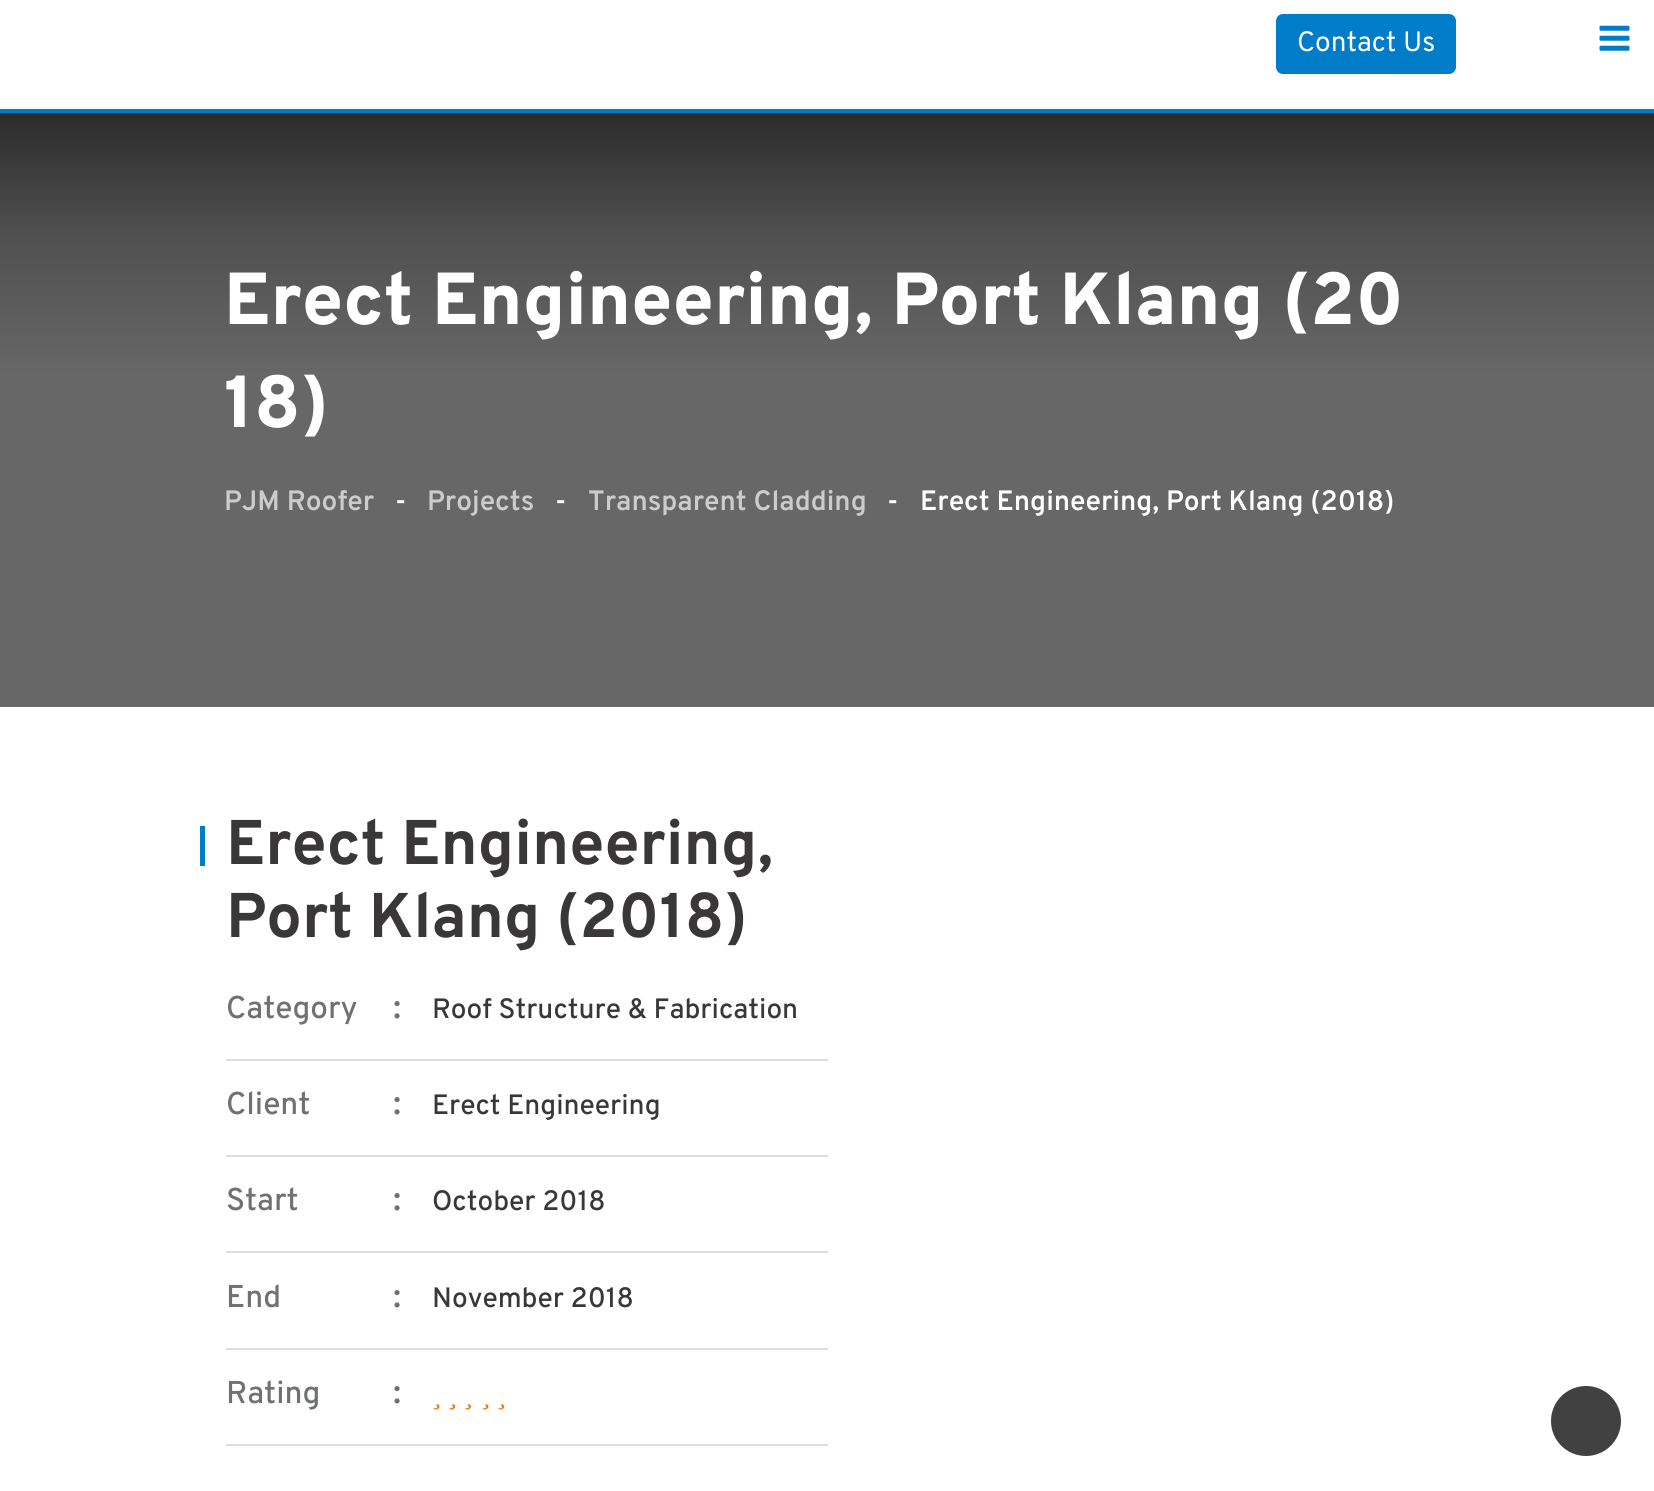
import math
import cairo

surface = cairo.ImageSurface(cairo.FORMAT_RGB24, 1654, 1491)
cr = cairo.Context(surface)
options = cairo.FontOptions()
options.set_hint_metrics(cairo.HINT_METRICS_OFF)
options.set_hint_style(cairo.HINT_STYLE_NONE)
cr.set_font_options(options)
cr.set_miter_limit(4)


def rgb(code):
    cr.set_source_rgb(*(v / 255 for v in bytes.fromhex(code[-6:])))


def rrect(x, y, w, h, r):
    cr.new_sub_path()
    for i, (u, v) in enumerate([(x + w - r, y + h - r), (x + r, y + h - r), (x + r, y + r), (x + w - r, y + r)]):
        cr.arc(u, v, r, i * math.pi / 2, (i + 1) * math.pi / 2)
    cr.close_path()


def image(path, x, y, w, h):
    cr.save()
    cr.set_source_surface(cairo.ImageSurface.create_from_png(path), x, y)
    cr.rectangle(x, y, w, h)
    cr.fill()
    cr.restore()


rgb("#ffffff")
cr.paint()
rgb("#007cc8")
cr.rectangle(0, 109, 1654, 4)
cr.fill()
rrect(1276, 14, 180, 60, 7)
cr.fill()
image("img/1.png", 1599, 25, 31, 26)
gradient = cairo.LinearGradient(828, 112, 828, 707)
gradient.add_color_stop_rgba(0, 0.169, 0.169, 0.169, 1)
gradient.add_color_stop_rgba(0.2, 0.31, 0.31, 0.31, 1)
gradient.add_color_stop_rgba(0.44, 0.404, 0.404, 0.404, 1)
cr.set_source(gradient)
cr.rectangle(0, 113, 1654, 594)
cr.fill()
for x, y, w, h, color in [
    (200, 826, 5, 40, "#007cc8"),
    (226, 1059, 602, 2, "#dedede"),
    (226, 1155, 602, 2, "#dedede"),
    (226, 1251, 602, 2, "#dedede"),
    (226, 1348, 602, 2, "#dedede"),
    (226, 1444, 602, 2, "#dedede"),
]:
    rgb(color)
    cr.rectangle(x, y, w, h)
    cr.fill()
image("img/2.png", 433, 1404, 7, 6)
image("img/3.png", 449, 1404, 7, 6)
image("img/4.png", 465, 1404, 6, 6)
image("img/2.png", 482, 1404, 7, 6)
image("img/3.png", 498, 1404, 7, 6)
rgb("#414141")
cr.arc(1586, 1421, 35, 0, 2 * math.pi)
cr.fill()
cr.select_font_face("Overpass")
cr.set_font_size(28)
rgb("#ffffff")
cr.move_to(1297, 51)
cr.show_text("Contact Us")
cr.select_font_face("Overpass ExtraBold")
cr.set_font_size(73.5)
cr.move_to(224, 324)
cr.show_text("Erect Engineering, Port Klang (20")
cr.move_to(224, 427)
cr.show_text("18)")
cr.select_font_face("Overpass SemiBold")
cr.set_font_size(28)
rgb("#cccccc")
cr.move_to(224, 510)
cr.show_text("PJM Roofer")
rgb("#ffffff")
cr.move_to(395, 510)
cr.show_text("-")
rgb("#cccccc")
cr.move_to(427, 510)
cr.show_text("Projects")
rgb("#ffffff")
cr.move_to(555, 510)
cr.show_text("-")
rgb("#cccccc")
cr.move_to(588, 510)
cr.show_text("Transparent Cladding")
rgb("#ffffff")
cr.move_to(887, 510)
cr.show_text("-")
cr.move_to(920, 510)
cr.show_text("Erect Engineering, Port Klang (2018)")
cr.select_font_face("Overpass", cairo.FONT_SLANT_NORMAL, cairo.FONT_WEIGHT_BOLD)
cr.set_font_size(63)
rgb("#393738")
cr.move_to(226, 864)
cr.show_text("Erect Engineering,")
cr.move_to(226, 937)
cr.show_text("Port Klang (2018)")
cr.select_font_face("Overpass Medium")
cr.set_font_size(31.5)
rgb("#707173")
cr.move_to(226, 1018)
cr.show_text("Category")
cr.set_font_size(35)
cr.move_to(393, 1018)
cr.show_text(":")
cr.set_font_size(28)
rgb("#393738")
cr.move_to(432, 1018)
cr.show_text("Roof Structure & Fabrication")
cr.set_font_size(31.5)
rgb("#707173")
cr.move_to(226, 1114)
cr.show_text("Client")
cr.set_font_size(35)
cr.move_to(393, 1114)
cr.show_text(":")
cr.set_font_size(28)
rgb("#393738")
cr.move_to(432, 1114)
cr.show_text("Erect Engineering")
cr.set_font_size(31.5)
rgb("#707173")
cr.move_to(226, 1210)
cr.show_text("Start")
cr.set_font_size(35)
cr.move_to(393, 1210)
cr.show_text(":")
cr.set_font_size(28)
rgb("#393738")
cr.move_to(432, 1210)
cr.show_text("October 2018")
cr.set_font_size(31.5)
rgb("#707173")
cr.move_to(226, 1307)
cr.show_text("End")
cr.set_font_size(35)
cr.move_to(393, 1307)
cr.show_text(":")
cr.set_font_size(28)
rgb("#393738")
cr.move_to(432, 1307)
cr.show_text("November 2018")
cr.set_font_size(31.5)
rgb("#707173")
cr.move_to(226, 1403)
cr.show_text("Rating")
cr.set_font_size(35)
cr.move_to(393, 1403)
cr.show_text(":")
surface.write_to_png("page.png")
